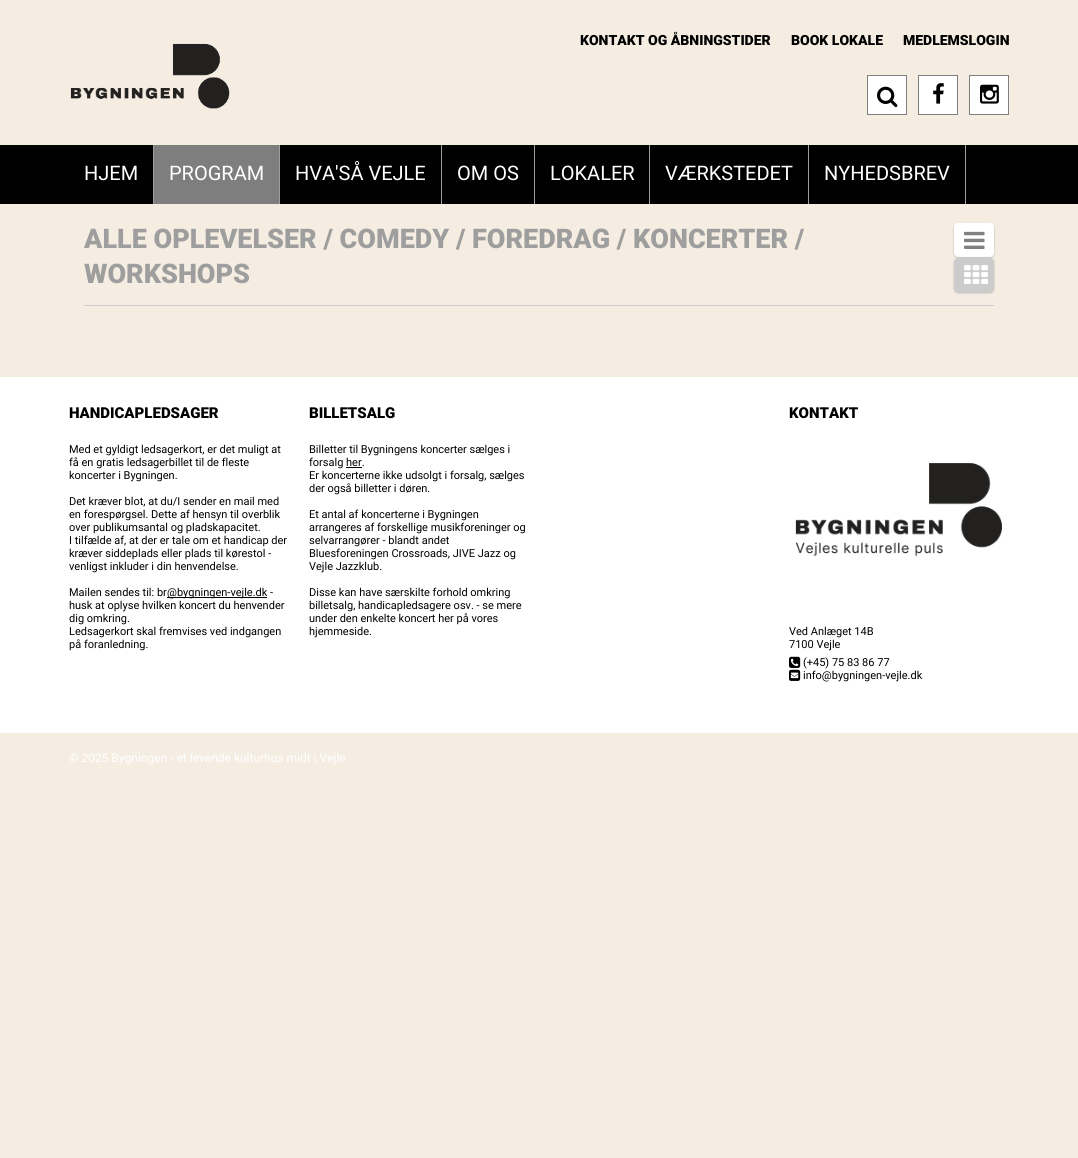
import math
import cairo

surface = cairo.ImageSurface(cairo.FORMAT_RGB24, 1078, 1158)
cr = cairo.Context(surface)
options = cairo.FontOptions()
options.set_hint_metrics(cairo.HINT_METRICS_OFF)
options.set_hint_style(cairo.HINT_STYLE_NONE)
cr.set_font_options(options)
cr.set_miter_limit(4)


def rgb(code):
    cr.set_source_rgb(*(v / 255 for v in bytes.fromhex(code[-6:])))


def rrect(x, y, w, h, r):
    cr.new_sub_path()
    for i, (u, v) in enumerate([(x + w - r, y + h - r), (x + r, y + h - r), (x + r, y + r), (x + w - r, y + r)]):
        cr.arc(u, v, r, i * math.pi / 2, (i + 1) * math.pi / 2)
    cr.close_path()


def soft_shadow(x, y, w, h, r, blur, alpha):
    cr.push_group_with_content(cairo.CONTENT_ALPHA)
    cr.set_operator(cairo.OPERATOR_SOURCE)
    for i in range(15, -16, -2):
        e = blur * i / 6
        if min(w, h) + 2 * e > 0:
            cr.set_source_rgba(0, 0, 0, alpha * math.erfc((i - 1) / 8.5) / 2)
            rrect(x - e, y - e, w + 2 * e, h + 2 * e, max(0, min(r + e + blur * .6, min(w, h) / 2 + e)))
            cr.fill()
    cr.mask(cr.pop_group())


def image(path, x, y, w, h):
    cr.save()
    cr.set_source_surface(cairo.ImageSurface.create_from_png(path), x, y)
    cr.rectangle(x, y, w, h)
    cr.fill()
    cr.restore()


rgb("#f5ede2")
cr.paint()
rgb("#ffffff")
cr.rectangle(867.5, 75.5, 39, 39)
cr.fill_preserve()
rgb("#7e7e7e")
cr.set_line_width(1)
cr.stroke()
image("img/1.png", 877, 86, 21, 22)
rgb("#ffffff")
cr.rectangle(918.5, 75.5, 39, 39)
cr.fill_preserve()
rgb("#7e7e7e")
cr.stroke()
image("img/2.png", 933, 83, 11, 21)
rgb("#ffffff")
cr.rectangle(969.5, 75.5, 39, 39)
cr.fill_preserve()
rgb("#7e7e7e")
cr.stroke()
image("img/3.png", 980, 84, 19, 20)
image("img/4.png", 70, 43, 160, 66)
for x, y, w, h, color in [
    (0, 145, 1078, 59, "#000000"),
    (153, 145, 1, 59, "#9e9e9e"),
    (279, 145, 1, 59, "#9e9e9e"),
    (154, 145, 125, 59, "#7e7e7e"),
    (441, 145, 1, 59, "#9e9e9e"),
    (534, 145, 1, 59, "#9e9e9e"),
    (649, 145, 1, 59, "#9e9e9e"),
    (808, 145, 1, 59, "#9e9e9e"),
    (965, 145, 1, 59, "#9e9e9e"),
    (84, 305, 910, 1, "#cccccc"),
]:
    rgb(color)
    cr.rectangle(x, y, w, h)
    cr.fill()
rgb("#bbbbbb")
soft_shadow(954, 224, 40, 34, 4, 1, 1)
rgb("#ffffff")
rrect(954, 223, 40, 34, 4)
cr.fill()
image("img/5.png", 964, 231, 21, 18)
rgb("#bbbbbb")
soft_shadow(954, 259, 40, 34, 4, 1, 1)
rgb("#cccccc")
rrect(954, 258, 40, 34, 4)
cr.fill()
image("img/6.png", 964, 265, 24, 19)
for x, y, w, h, color in [
    (0, 377, 1078, 356, "#ffffff"),
    (167, 597, 100, 1, "#000000"),
    (346, 467, 16, 1, "#000000"),
]:
    rgb(color)
    cr.rectangle(x, y, w, h)
    cr.fill()
image("img/7.png", 795, 463, 208, 94)
image("img/8.png", 789, 656, 12, 12)
image("img/9.png", 789, 669, 12, 12)
cr.select_font_face("Roboto Black")
cr.set_font_size(14)
for x, y, s in [
    (580, 45, "KONTAKT OG ÅBNINGSTIDER"),
    (791, 45, "BOOK LOKALE"),
    (903, 45, "MEDLEMSLOGIN"),
]:
    cr.move_to(x, y)
    cr.show_text(s)
cr.select_font_face("Roboto")
cr.set_font_size(20)
rgb("#ffffff")
for x, y, s in [
    (84, 180, "HJEM"),
    (169, 180, "PROGRAM"),
    (295, 180, "HVA'SÅ VEJLE"),
    (457, 180, "OM OS"),
    (550, 180, "LOKALER"),
    (665, 180, "VÆRKSTEDET"),
    (824, 180, "NYHEDSBREV"),
]:
    cr.move_to(x, y)
    cr.show_text(s)
cr.select_font_face("Roboto Black")
cr.set_font_size(27)
rgb("#9e9e9e")
cr.move_to(84, 248)
cr.show_text("ALLE OPLEVELSER / COMEDY / FOREDRAG / KONCERTER /")
cr.move_to(84, 283)
cr.show_text("WORKSHOPS")
cr.set_font_size(15)
rgb("#000000")
cr.move_to(69, 418)
cr.show_text("HANDICAPLEDSAGER")
cr.select_font_face("Roboto")
cr.set_font_size(11)
for x, y, s in [
    (69, 453, "Med et gyldigt ledsagerkort, er det muligt at"),
    (69, 466, "få en gratis ledsagerbillet til de fleste"),
    (69, 479, "koncerter i Bygningen."),
    (69, 505, "Det kræver blot, at du/I sender en mail med"),
    (69, 518, "en forespørgsel. Dette af hensyn til overblik"),
    (69, 531, "over publikumsantal og pladskapacitet."),
    (69, 544, "I tilfælde af, at der er tale om et handicap der"),
    (69, 557, "kræver siddeplads eller plads til kørestol -"),
    (69, 570, "venligst inkluder i din henvendelse."),
    (69, 596, "Mailen sendes til: br"),
    (167, 596, "@bygningen-vejle.dk -"),
    (69, 609, "husk at oplyse hvilken koncert du henvender"),
    (69, 622, "dig omkring."),
    (69, 635, "Ledsagerkort skal fremvises ved indgangen"),
    (69, 648, "på foranledning."),
]:
    cr.move_to(x, y)
    cr.show_text(s)
cr.select_font_face("Roboto Black")
cr.set_font_size(15)
cr.move_to(309, 418)
cr.show_text("BILLETSALG")
cr.select_font_face("Roboto")
cr.set_font_size(11)
for x, y, s in [
    (309, 453, "Billetter til Bygningens koncerter sælges i"),
    (309, 466, "forsalg her."),
    (309, 479, "Er koncerterne ikke udsolgt i forsalg, sælges"),
    (309, 492, "der også billetter i døren."),
    (309, 518, "Et antal af koncerterne i Bygningen"),
    (309, 531, "arrangeres af forskellige musikforeninger og"),
    (309, 544, "selvarrangører - blandt andet"),
    (309, 557, "Bluesforeningen Crossroads, JIVE Jazz og"),
    (309, 570, "Vejle Jazzklub."),
    (309, 596, "Disse kan have særskilte forhold omkring"),
    (309, 609, "billetsalg, handicapledsagere osv. - se mere"),
    (309, 622, "under den enkelte koncert her på vores"),
    (309, 635, "hjemmeside."),
]:
    cr.move_to(x, y)
    cr.show_text(s)
cr.select_font_face("Roboto Black")
cr.set_font_size(15)
cr.move_to(789, 418)
cr.show_text("KONTAKT")
cr.select_font_face("Roboto")
cr.set_font_size(11)
for x, y, s in [
    (789, 635, "Ved Anlæget 14B"),
    (789, 648, "7100 Vejle"),
    (803, 666, "(+45) 75 83 86 77"),
    (803, 679, "info@bygningen-vejle.dk"),
]:
    cr.move_to(x, y)
    cr.show_text(s)
cr.set_font_size(12)
rgb("#ffffff")
cr.move_to(69, 762)
cr.show_text("© 2025 Bygningen - et levende kulturhus midt i Vejle")
surface.write_to_png("page.png")
